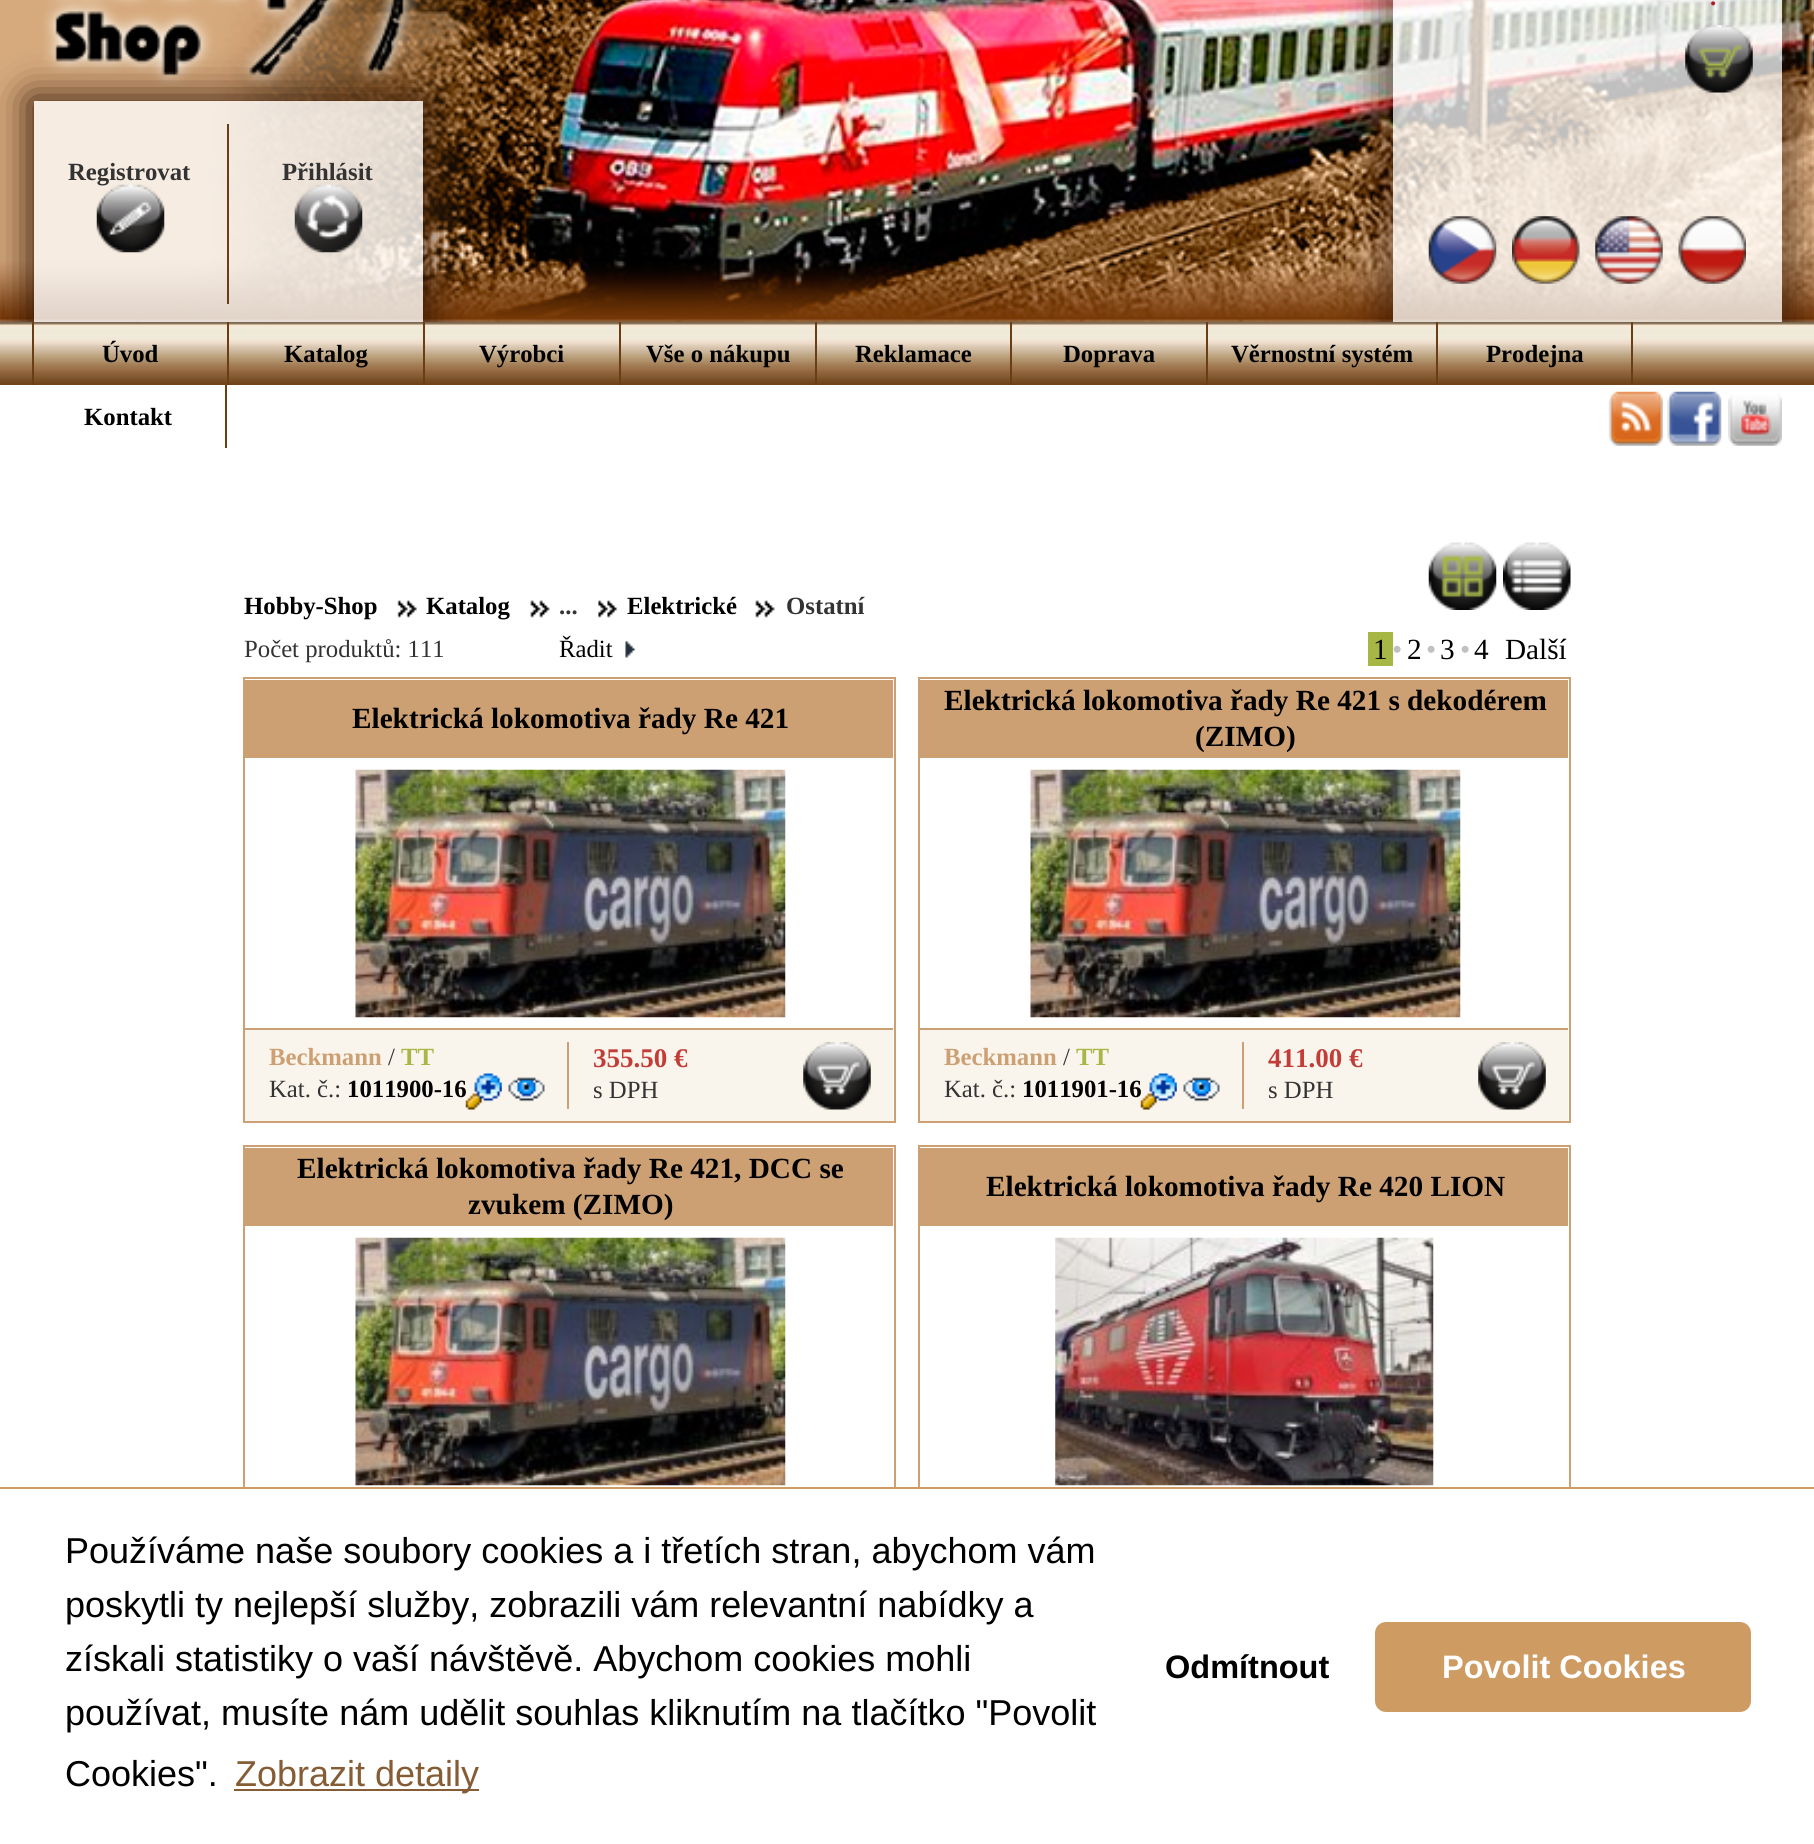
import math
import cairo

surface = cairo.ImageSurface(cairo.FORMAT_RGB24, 1814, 1844)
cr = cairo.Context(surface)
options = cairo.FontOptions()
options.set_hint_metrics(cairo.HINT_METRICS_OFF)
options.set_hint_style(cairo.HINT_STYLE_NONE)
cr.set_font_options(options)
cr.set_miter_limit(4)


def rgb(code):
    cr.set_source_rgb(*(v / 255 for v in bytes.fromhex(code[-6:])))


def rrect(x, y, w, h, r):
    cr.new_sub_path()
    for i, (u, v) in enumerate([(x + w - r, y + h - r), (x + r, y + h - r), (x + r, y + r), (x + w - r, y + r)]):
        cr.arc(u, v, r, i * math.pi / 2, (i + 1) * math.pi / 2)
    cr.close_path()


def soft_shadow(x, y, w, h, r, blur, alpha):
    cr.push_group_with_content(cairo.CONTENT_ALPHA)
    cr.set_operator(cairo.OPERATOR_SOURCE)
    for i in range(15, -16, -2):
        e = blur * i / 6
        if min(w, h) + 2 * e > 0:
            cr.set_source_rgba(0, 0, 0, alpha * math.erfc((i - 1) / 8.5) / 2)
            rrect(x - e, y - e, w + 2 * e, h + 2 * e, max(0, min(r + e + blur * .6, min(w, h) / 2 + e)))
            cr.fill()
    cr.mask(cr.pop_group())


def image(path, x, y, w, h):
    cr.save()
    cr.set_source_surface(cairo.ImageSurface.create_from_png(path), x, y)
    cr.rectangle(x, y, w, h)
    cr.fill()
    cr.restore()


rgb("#ffffff")
cr.paint()
image("img/1.png", 0, 0, 1814, 322)
image("img/2.png", 43, 0, 374, 86)
cr.save()
cr.set_fill_rule(cairo.FILL_RULE_EVEN_ODD)
cr.new_path()
cr.move_to(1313, 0)
cr.line_to(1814, 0)
cr.line_to(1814, 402)
cr.line_to(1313, 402)
cr.close_path()
cr.move_to(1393, -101)
cr.line_to(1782, -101)
cr.line_to(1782, 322)
cr.line_to(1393, 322)
cr.close_path()
cr.clip()
rgb("#2d1001")
soft_shadow(1382, -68, 411, 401, 0, 22.5, 0.68)
cr.restore()
cr.set_source_rgba(1, 1, 1, 0.75)
cr.rectangle(1393, 0, 389, 322)
cr.fill()
image("img/3.png", 1685, 25, 68, 68)
image("img/4.png", 1428, 216, 69, 68)
image("img/5.png", 1512, 216, 68, 68)
image("img/6.png", 1595, 216, 68, 68)
image("img/7.png", 1678, 216, 68, 68)
cr.set_source_rgba(1, 1, 1, 0.78)
cr.rectangle(34, 101, 389, 221)
cr.fill()
cr.save()
cr.set_fill_rule(cairo.FILL_RULE_EVEN_ODD)
cr.new_path()
cr.move_to(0, 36)
cr.line_to(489, 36)
cr.line_to(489, 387)
cr.line_to(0, 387)
cr.close_path()
cr.move_to(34, 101)
cr.line_to(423, 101)
cr.line_to(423, 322)
cr.line_to(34, 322)
cr.close_path()
cr.clip()
rgb("#2d1001")
soft_shadow(29, 97, 399, 229, 0, 20, 0.95)
cr.restore()
rgb("#693e14")
cr.rectangle(227, 124, 2, 180)
cr.fill()
image("img/9.png", 294, 184, 69, 69)
image("img/10.png", 0, 322, 1814, 63)
for x, y, w, h, color in [
    (227, 322, 2, 63, "#693e14"),
    (32, 322, 2, 63, "#693e14"),
    (423, 322, 2, 63, "#693e14"),
    (619, 322, 2, 63, "#693e14"),
    (815, 322, 2, 63, "#693e14"),
    (1010, 322, 2, 63, "#693e14"),
    (1206, 322, 2, 63, "#693e14"),
    (1436, 322, 2, 63, "#693e14"),
    (1631, 322, 2, 63, "#693e14"),
    (225, 385, 2, 63, "#693e14"),
]:
    rgb(color)
    cr.rectangle(x, y, w, h)
    cr.fill()
image("img/11.png", 1608, 391, 55, 55)
image("img/12.png", 1667, 391, 55, 55)
image("img/13.png", 1728, 394, 54, 52)
image("img/14.png", 397, 600, 20, 18)
image("img/15.png", 530, 600, 20, 18)
image("img/16.png", 598, 600, 20, 18)
image("img/17.png", 755, 600, 20, 18)
image("img/18.png", 1428, 542, 69, 68)
image("img/19.png", 1503, 542, 68, 68)
image("img/20.png", 625, 641, 11, 17)
rgb("#a6b745")
cr.rectangle(1368, 632, 25, 34)
cr.fill()
cr.rectangle(244, 678, 651, 444)
rgb("#cca073")
cr.stroke()
cr.rectangle(245, 680, 648, 78)
cr.fill()
image("img/21.png", 355, 769, 431, 249)
for x, y, w, h, color in [
    (245, 1030, 648, 91, "#faf5ec"),
    (245, 1028, 648, 2, "#cca073"),
    (567, 1042, 2, 67, "#cca073"),
]:
    rgb(color)
    cr.rectangle(x, y, w, h)
    cr.fill()
image("img/23.png", 508, 1077, 37, 25)
image("img/24.png", 803, 1042, 68, 68)
cr.rectangle(919, 678, 651, 444)
cr.stroke()
cr.rectangle(920, 680, 648, 78)
cr.fill()
image("img/25.png", 1030, 769, 431, 249)
for x, y, w, h, color in [
    (920, 1030, 648, 91, "#faf5ec"),
    (920, 1028, 648, 2, "#cca073"),
    (1242, 1042, 2, 67, "#cca073"),
]:
    rgb(color)
    cr.rectangle(x, y, w, h)
    cr.fill()
image("img/23.png", 1183, 1077, 37, 25)
image("img/26.png", 1478, 1042, 68, 68)
cr.rectangle(244, 1146, 651, 444)
cr.stroke()
cr.rectangle(245, 1148, 648, 78)
cr.fill()
image("img/27.png", 355, 1237, 431, 249)
cr.rectangle(919, 1146, 651, 444)
cr.stroke()
cr.rectangle(920, 1148, 648, 78)
cr.fill()
image("img/28.png", 1055, 1237, 379, 249)
for x, y, w, h, color in [
    (243, 1489, 1328, 102, "#ffffff"),
    (0, 1487, 1814, 2, "#ce9c63"),
    (234, 1789, 245, 2, "#855c33"),
]:
    rgb(color)
    cr.rectangle(x, y, w, h)
    cr.fill()
rgb("#ce9c63")
rrect(1375, 1622, 376, 90, 11)
cr.fill()
cr.select_font_face("Liberation Serif", cairo.FONT_SLANT_NORMAL, cairo.FONT_WEIGHT_BOLD)
cr.set_font_size(24.75)
rgb("#b31724")
cr.move_to(1710, 5)
cr.show_text(".")
rgb("#333333")
cr.move_to(68, 180)
cr.show_text("Registrovat")
image("img/8.png", 96, 184, 69, 69)
cr.move_to(282, 180)
cr.show_text("Přihlásit")
rgb("#000000")
for x, y, s in [
    (102, 362, "Úvod"),
    (284, 362, "Katalog"),
    (479, 362, "Výrobci"),
    (646, 362, "Vše o nákupu"),
    (855, 362, "Reklamace"),
    (1063, 362, "Doprava"),
    (1231, 362, "Věrnostní systém"),
    (1486, 362, "Prodejna"),
    (84, 425, "Kontakt"),
    (244, 614, "Hobby-Shop"),
    (426, 614, "Katalog"),
]:
    cr.move_to(x, y)
    cr.show_text(s)
rgb("#333333")
cr.move_to(559, 614)
cr.show_text("...")
rgb("#000000")
cr.move_to(627, 614)
cr.show_text("Elektrické")
rgb("#333333")
cr.move_to(786, 614)
cr.show_text("Ostatní")
cr.select_font_face("Liberation Serif")
rgb("#000000")
cr.move_to(559, 657)
cr.show_text("Řadit")
rgb("#333333")
cr.move_to(244, 657)
cr.show_text("Počet produktů: 111")
cr.set_font_size(29.25)
rgb("#000000")
cr.move_to(1373, 659)
cr.show_text("1")
rgb("#c0c0c0")
cr.move_to(1392, 659)
cr.show_text("•")
rgb("#000000")
cr.move_to(1407, 659)
cr.show_text("2")
rgb("#c0c0c0")
cr.move_to(1426, 659)
cr.show_text("•")
rgb("#000000")
cr.move_to(1440, 659)
cr.show_text("3")
rgb("#c0c0c0")
cr.move_to(1460, 659)
cr.show_text("•")
rgb("#000000")
cr.move_to(1474, 659)
cr.show_text("4")
cr.move_to(1505, 659)
cr.show_text("Další")
cr.select_font_face("Liberation Serif", cairo.FONT_SLANT_NORMAL, cairo.FONT_WEIGHT_BOLD)
cr.move_to(352, 728)
cr.show_text("Elektrická lokomotiva řady Re 421")
cr.set_font_size(24.75)
rgb("#cca073")
cr.move_to(269, 1065)
cr.show_text("Beckmann")
cr.select_font_face("Liberation Serif")
rgb("#333333")
cr.move_to(388, 1065)
cr.show_text("/")
cr.select_font_face("Liberation Serif", cairo.FONT_SLANT_NORMAL, cairo.FONT_WEIGHT_BOLD)
rgb("#a6b745")
cr.move_to(401, 1065)
cr.show_text("TT")
cr.select_font_face("Liberation Serif")
rgb("#333333")
cr.move_to(269, 1097)
cr.show_text("Kat. č.:")
cr.select_font_face("Liberation Serif", cairo.FONT_SLANT_NORMAL, cairo.FONT_WEIGHT_BOLD)
rgb("#000000")
cr.move_to(347, 1097)
cr.show_text("1011900-16")
image("img/22.png", 465, 1073, 37, 37)
cr.set_font_size(27)
rgb("#c23d38")
cr.move_to(593, 1067)
cr.show_text("355.50 €")
cr.select_font_face("Liberation Serif")
cr.set_font_size(24.75)
rgb("#333333")
cr.move_to(593, 1098)
cr.show_text("s DPH")
cr.select_font_face("Liberation Serif", cairo.FONT_SLANT_NORMAL, cairo.FONT_WEIGHT_BOLD)
cr.set_font_size(29.25)
rgb("#000000")
cr.move_to(944, 710)
cr.show_text("Elektrická lokomotiva řady Re 421 s dekodérem")
cr.move_to(1195, 746)
cr.show_text("(ZIMO)")
cr.set_font_size(24.75)
rgb("#cca073")
cr.move_to(944, 1065)
cr.show_text("Beckmann")
cr.select_font_face("Liberation Serif")
rgb("#333333")
cr.move_to(1063, 1065)
cr.show_text("/")
cr.select_font_face("Liberation Serif", cairo.FONT_SLANT_NORMAL, cairo.FONT_WEIGHT_BOLD)
rgb("#a6b745")
cr.move_to(1076, 1065)
cr.show_text("TT")
cr.select_font_face("Liberation Serif")
rgb("#333333")
cr.move_to(944, 1097)
cr.show_text("Kat. č.:")
cr.select_font_face("Liberation Serif", cairo.FONT_SLANT_NORMAL, cairo.FONT_WEIGHT_BOLD)
rgb("#000000")
cr.move_to(1022, 1097)
cr.show_text("1011901-16")
image("img/22.png", 1140, 1073, 37, 37)
cr.set_font_size(27)
rgb("#c23d38")
cr.move_to(1268, 1067)
cr.show_text("411.00 €")
cr.select_font_face("Liberation Serif")
cr.set_font_size(24.75)
rgb("#333333")
cr.move_to(1268, 1098)
cr.show_text("s DPH")
cr.select_font_face("Liberation Serif", cairo.FONT_SLANT_NORMAL, cairo.FONT_WEIGHT_BOLD)
cr.set_font_size(29.25)
rgb("#000000")
for x, y, s in [
    (297, 1178, "Elektrická lokomotiva řady Re 421, DCC se"),
    (468, 1214, "zvukem (ZIMO)"),
    (986, 1196, "Elektrická lokomotiva řady Re 420 LION"),
]:
    cr.move_to(x, y)
    cr.show_text(s)
cr.select_font_face("Liberation Sans")
cr.set_font_size(36)
for x, y, s in [
    (65, 1563, "Používáme naše soubory cookies a i třetích stran, abychom vám"),
    (65, 1617, "poskytli ty nejlepší služby, zobrazili vám relevantní nabídky a"),
    (65, 1671, "získali statistiky o vaší návštěvě. Abychom cookies mohli"),
    (65, 1725, "používat, musíte nám udělit souhlas kliknutím na tlačítko \"Povolit"),
    (65, 1786, "Cookies\"."),
]:
    cr.move_to(x, y)
    cr.show_text(s)
rgb("#855c33")
cr.move_to(235, 1786)
cr.show_text("Zobrazit detaily")
cr.select_font_face("Liberation Sans", cairo.FONT_SLANT_NORMAL, cairo.FONT_WEIGHT_BOLD)
cr.set_font_size(32.5)
rgb("#000000")
cr.move_to(1165, 1678)
cr.show_text("Odmítnout")
rgb("#ffffff")
cr.move_to(1442, 1678)
cr.show_text("Povolit Cookies")
surface.write_to_png("page.png")
